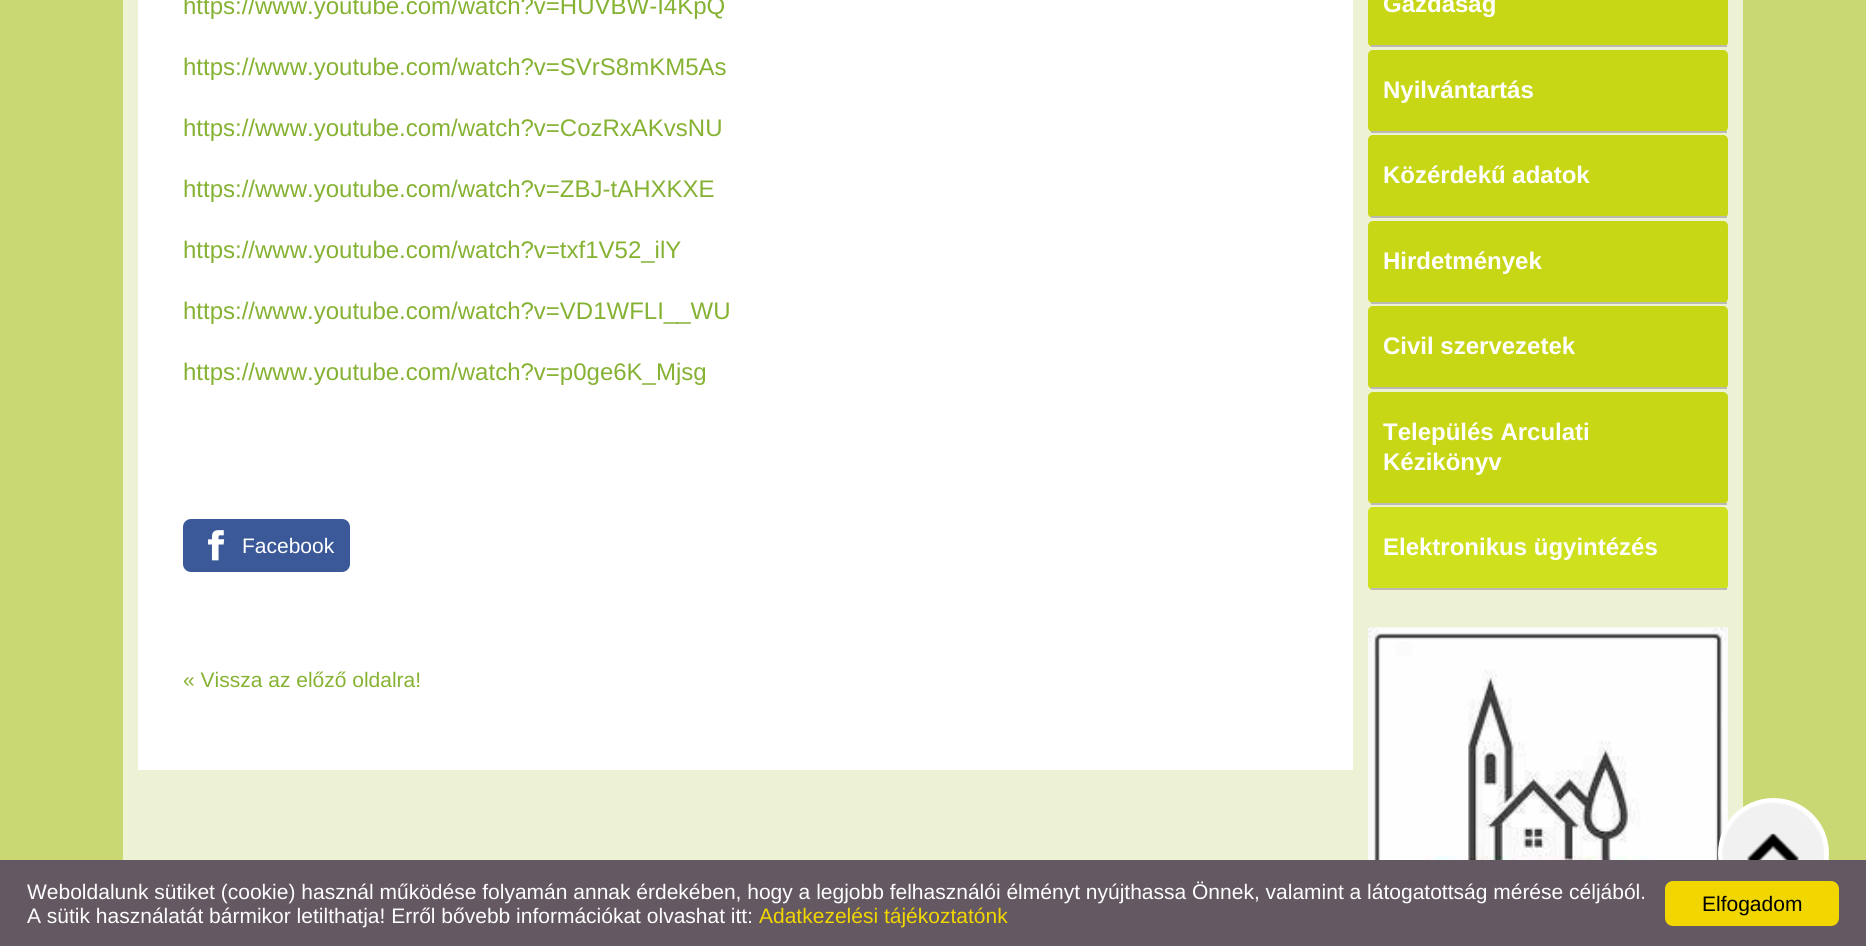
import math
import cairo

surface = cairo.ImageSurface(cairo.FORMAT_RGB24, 1866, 946)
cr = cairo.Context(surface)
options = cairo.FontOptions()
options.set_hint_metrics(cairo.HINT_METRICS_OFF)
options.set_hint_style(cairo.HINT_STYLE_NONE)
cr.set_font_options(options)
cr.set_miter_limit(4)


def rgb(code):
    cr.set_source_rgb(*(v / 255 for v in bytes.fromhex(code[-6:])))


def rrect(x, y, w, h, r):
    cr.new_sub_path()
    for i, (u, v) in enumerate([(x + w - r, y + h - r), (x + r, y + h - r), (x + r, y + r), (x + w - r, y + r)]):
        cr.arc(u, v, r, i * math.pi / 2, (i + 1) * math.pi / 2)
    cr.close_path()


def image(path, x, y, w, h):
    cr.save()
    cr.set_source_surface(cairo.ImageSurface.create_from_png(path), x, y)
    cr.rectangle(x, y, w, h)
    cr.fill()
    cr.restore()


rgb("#c9d873")
cr.paint()
rgb("#eef2d5")
cr.rectangle(123, 0, 1620, 860)
cr.fill()
rgb("#ffffff")
cr.rectangle(138, 0, 1215, 770)
cr.fill()
rgb("#3b5998")
rrect(183, 519, 167, 53, 8)
cr.fill()
image("img/1.png", 208, 530, 17, 31)
rgb("#c7d715")
rrect(1368, -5, 360, 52, 5)
cr.fill()
rgb("#bcb9b3")
cr.rectangle(1371, 45, 356, 2)
cr.fill()
rgb("#c7d715")
rrect(1368, 50, 360, 82, 5)
cr.fill()
rgb("#bcb9b3")
cr.rectangle(1371, 131, 356, 2)
cr.fill()
rgb("#c7d715")
rrect(1368, 135, 360, 83, 5)
cr.fill()
rgb("#bcb9b3")
cr.rectangle(1371, 216, 356, 2)
cr.fill()
rgb("#c7d715")
rrect(1368, 221, 360, 82, 5)
cr.fill()
rgb("#bcb9b3")
cr.rectangle(1371, 302, 356, 2)
cr.fill()
rgb("#c7d715")
rrect(1368, 306, 360, 83, 5)
cr.fill()
rgb("#bcb9b3")
cr.rectangle(1371, 387, 356, 2)
cr.fill()
rgb("#c7d715")
rrect(1368, 392, 360, 112, 5)
cr.fill()
rgb("#bcb9b3")
cr.rectangle(1371, 503, 356, 2)
cr.fill()
rgb("#cfe01c")
rrect(1368, 507, 360, 83, 5)
cr.fill()
rgb("#bcb9b3")
cr.rectangle(1371, 588, 356, 2)
cr.fill()
image("img/2.png", 1368, 627, 360, 233)
rgb("#ffffff")
cr.arc(1773.5, 853.5, 53, 0, 2 * math.pi)
cr.fill_preserve()
cr.set_line_width(5)
cr.stroke()
image("img/3.png", 1722, 802, 102, 58)
rgb("#645862")
cr.rectangle(0, 860, 1866, 86)
cr.fill()
rgb("#f1d600")
rrect(1665, 881, 174, 45, 8)
cr.fill()
cr.select_font_face("Liberation Sans")
cr.set_font_size(24)
rgb("#86b233")
for x, y, s in [
    (183, 14, "https://www.youtube.com/watch?v=HUVBW-I4KpQ"),
    (183, 75, "https://www.youtube.com/watch?v=SVrS8mKM5As"),
    (183, 136, "https://www.youtube.com/watch?v=CozRxAKvsNU"),
    (183, 197, "https://www.youtube.com/watch?v=ZBJ-tAHXKXE"),
    (183, 258, "https://www.youtube.com/watch?v=txf1V52_ilY"),
    (183, 319, "https://www.youtube.com/watch?v=VD1WFLI__WU"),
    (183, 380, "https://www.youtube.com/watch?v=p0ge6K_Mjsg"),
]:
    cr.move_to(x, y)
    cr.show_text(s)
cr.set_font_size(21)
rgb("#ffffff")
cr.move_to(242, 553)
cr.show_text("Facebook")
rgb("#86b233")
cr.move_to(183, 687)
cr.show_text("« Vissza az előző oldalra!")
cr.select_font_face("Liberation Sans", cairo.FONT_SLANT_NORMAL, cairo.FONT_WEIGHT_BOLD)
cr.set_font_size(24)
rgb("#ffffff")
for x, y, s in [
    (1383, 12, "Gazdaság"),
    (1383, 98, "Nyilvántartás"),
    (1383, 183, "Közérdekű adatok"),
    (1383, 269, "Hirdetmények"),
    (1383, 354, "Civil szervezetek"),
    (1383, 440, "Település Arculati"),
    (1383, 470, "Kézikönyv"),
    (1383, 555, "Elektronikus ügyintézés"),
]:
    cr.move_to(x, y)
    cr.show_text(s)
cr.select_font_face("Liberation Sans")
cr.set_font_size(21)
cr.move_to(27, 899)
cr.show_text("Weboldalunk sütiket (cookie) használ működése folyamán annak érdekében, hogy a legjobb felhasználói élményt nyújthassa Önnek, valamint a látogatottság mérése céljából.")
cr.move_to(27, 923)
cr.show_text("A sütik használatát bármikor letilthatja! Erről bővebb információkat olvashat itt:")
rgb("#f1d600")
cr.move_to(759, 923)
cr.show_text("Adatkezelési tájékoztatónk")
rgb("#000000")
cr.move_to(1702, 911)
cr.show_text("Elfogadom")
surface.write_to_png("page.png")
